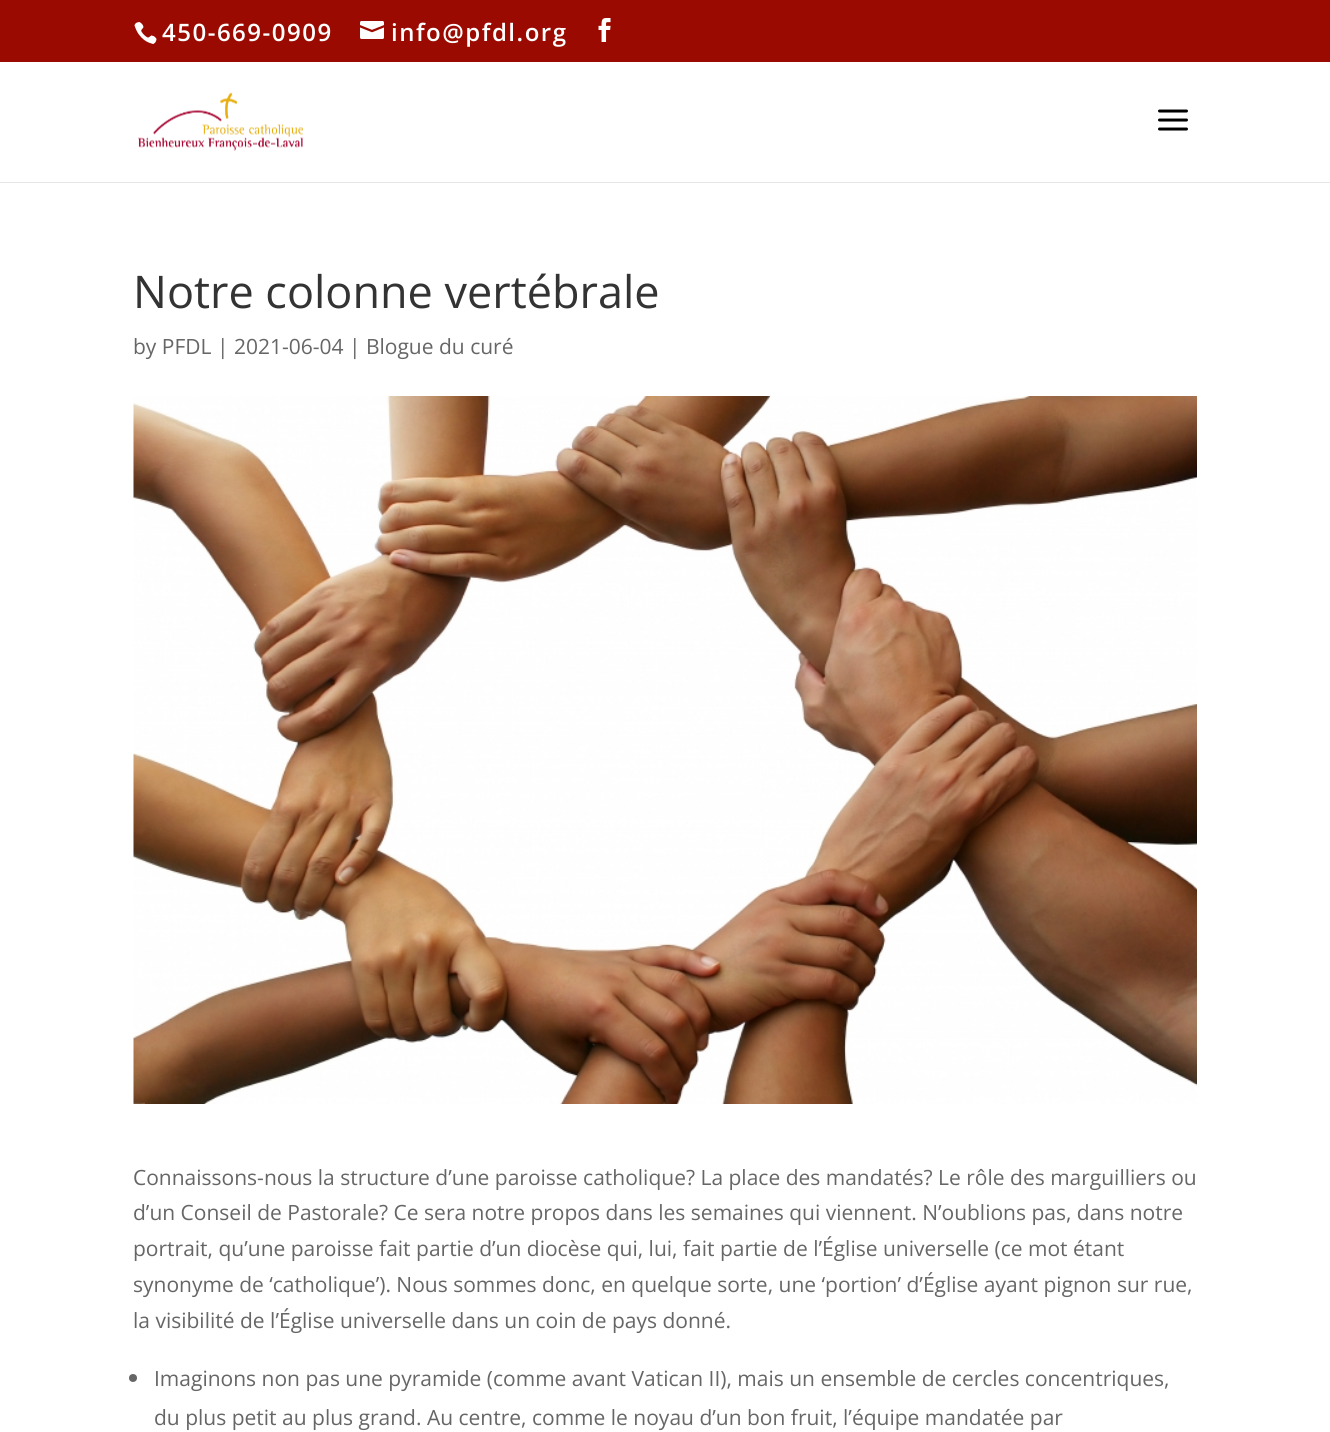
import math
import cairo

surface = cairo.ImageSurface(cairo.FORMAT_RGB24, 1330, 1432)
cr = cairo.Context(surface)
options = cairo.FontOptions()
options.set_hint_metrics(cairo.HINT_METRICS_OFF)
options.set_hint_style(cairo.HINT_STYLE_NONE)
cr.set_font_options(options)
cr.set_miter_limit(4)


def rgb(code):
    cr.set_source_rgb(*(v / 255 for v in bytes.fromhex(code[-6:])))


def tracked(x, y, s, letter, word):
    cr.move_to(x, y)
    for ch in s:
        cr.show_text(ch)
        cr.rel_move_to(letter + word * (ch == ' '), 0)


def image(path, x, y, w, h):
    cr.save()
    cr.set_source_surface(cairo.ImageSurface.create_from_png(path), x, y)
    cr.rectangle(x, y, w, h)
    cr.fill()
    cr.restore()


rgb("#ffffff")
cr.paint()
rgb("#9b0a00")
cr.rectangle(0, 0, 1330, 62)
cr.fill()
image("img/1.png", 134, 22, 23, 22)
image("img/2.png", 360, 21, 24, 18)
image("img/3.png", 598, 18, 13, 24)
rgb("#e6e6e6")
cr.new_path()
cr.move_to(0, 182)
cr.line_to(0, 183)
cr.line_to(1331, 183)
cr.line_to(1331, 63)
cr.line_to(1330, 63)
cr.line_to(1330, 182)
cr.close_path()
cr.fill()
image("img/4.png", 138, 92, 165, 59)
image("img/5.png", 1158, 109, 30, 22)
image("img/6.png", 133, 396, 1064, 708)
rgb("#666666")
cr.arc(133, 1378, 4, 0, 2 * math.pi)
cr.fill()
cr.select_font_face("Open Sans SemiBold")
cr.set_font_size(24)
rgb("#ffffff")
tracked(162, 41, "450-669-0909", 1.5, 0)
tracked(391, 41, "info@pfdl.org", 1.5, 0)
cr.select_font_face("Open Sans")
cr.set_font_size(45)
rgb("#333333")
cr.move_to(133, 308)
cr.show_text("Notre colonne vertébrale")
cr.set_font_size(21)
rgb("#666666")
for x, y, s in [
    (133, 354, "by PFDL | 2021-06-04 | Blogue du curé"),
    (133, 1185, "Connaissons-nous la structure d’une paroisse catholique? La place des mandatés? Le rôle des marguilliers ou"),
    (133, 1220, "d’un Conseil de Pastorale? Ce sera notre propos dans les semaines qui viennent. N’oublions pas, dans notre"),
    (133, 1256, "portrait, qu’une paroisse fait partie d’un diocèse qui, lui, fait partie de l’Église universelle (ce mot étant"),
    (133, 1292, "synonyme de ‘catholique’). Nous sommes donc, en quelque sorte, une ‘portion’ d’Église ayant pignon sur rue,"),
    (133, 1328, "la visibilité de l’Église universelle dans un coin de pays donné."),
    (154, 1386, "Imaginons non pas une pyramide (comme avant Vatican II), mais un ensemble de cercles concentriques,"),
    (154, 1425, "du plus petit au plus grand. Au centre, comme le noyau d’un bon fruit, l’équipe mandatée par"),
]:
    cr.move_to(x, y)
    cr.show_text(s)
surface.write_to_png("page.png")
